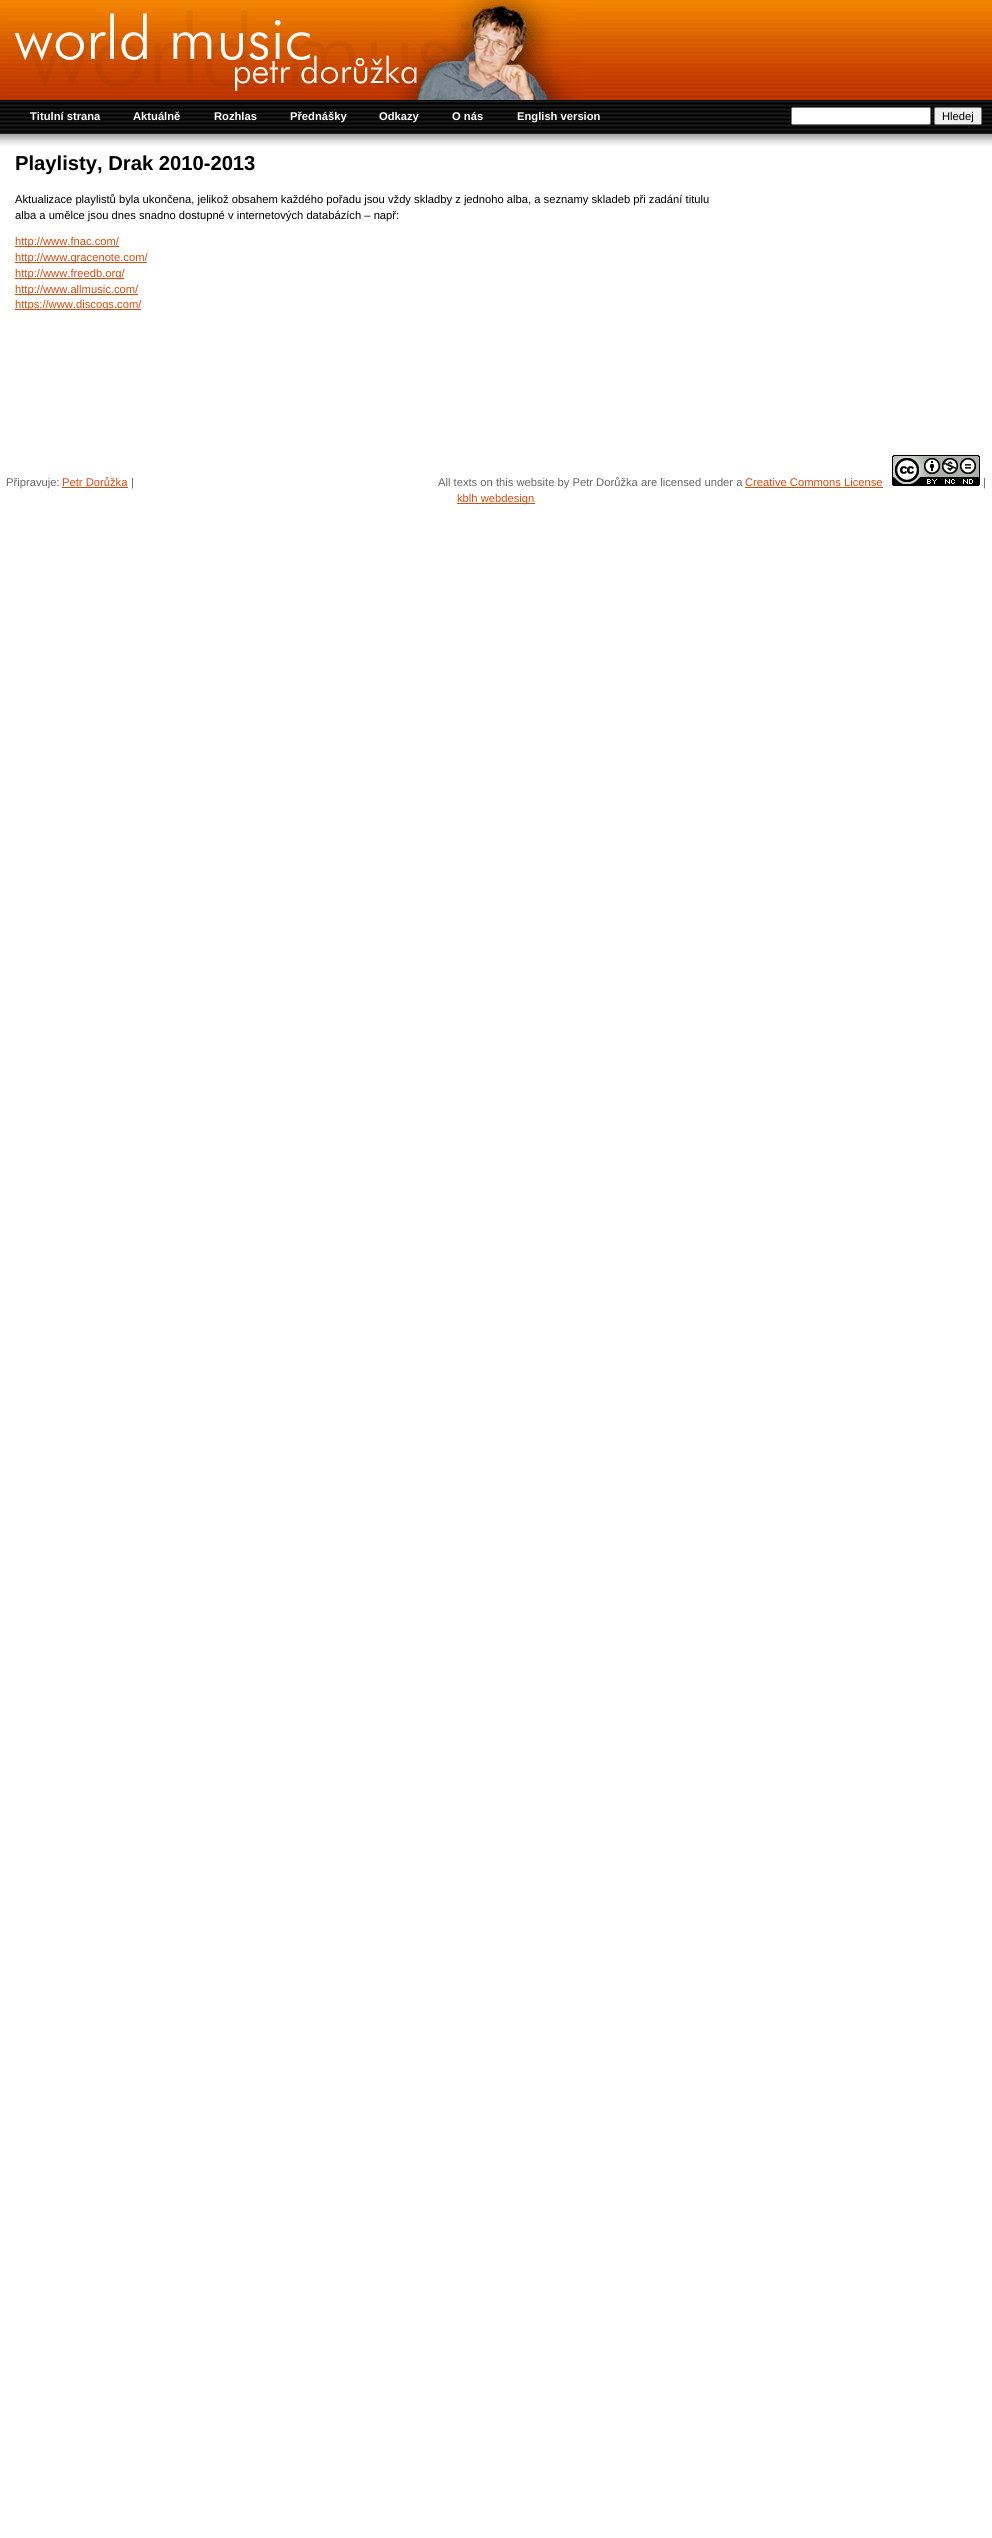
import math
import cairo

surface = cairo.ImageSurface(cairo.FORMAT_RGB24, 992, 2538)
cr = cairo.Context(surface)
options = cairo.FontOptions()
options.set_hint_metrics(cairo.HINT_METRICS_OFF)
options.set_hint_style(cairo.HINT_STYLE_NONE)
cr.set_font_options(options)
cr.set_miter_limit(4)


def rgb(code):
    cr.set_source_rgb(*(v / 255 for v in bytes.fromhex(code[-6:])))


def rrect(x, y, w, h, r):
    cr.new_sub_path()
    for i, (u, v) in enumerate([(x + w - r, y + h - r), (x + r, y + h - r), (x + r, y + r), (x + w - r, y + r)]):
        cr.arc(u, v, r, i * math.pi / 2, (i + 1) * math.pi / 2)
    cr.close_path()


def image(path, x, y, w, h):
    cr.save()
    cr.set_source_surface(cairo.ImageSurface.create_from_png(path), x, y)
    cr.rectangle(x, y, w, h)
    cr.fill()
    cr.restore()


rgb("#ffffff")
cr.paint()
image("img/1.png", 0, 0, 992, 146)
image("img/2.png", 2, 0, 578, 100)
rgb("#ffffff")
rrect(791.5, 107.5, 139, 17, 1.5)
cr.fill_preserve()
rgb("#767676")
cr.set_line_width(1)
cr.stroke()
rgb("#efefef")
rrect(934.5, 107.5, 47, 17, 1.5)
cr.fill_preserve()
rgb("#767676")
cr.stroke()
for x, y, w, h, color in [
    (15, 246, 104, 1, "#d74b0f"),
    (15, 262, 132, 1, "#d74b0f"),
    (15, 278, 109, 1, "#d74b0f"),
    (15, 294, 123, 1, "#d74b0f"),
    (15, 309, 126, 1, "#d74b0f"),
    (62, 487, 66, 1, "#d74b0f"),
    (745, 487, 138, 1, "#d74b0f"),
]:
    rgb(color)
    cr.rectangle(x, y, w, h)
    cr.fill()
image("img/3.png", 892, 455, 88, 31)
cr.rectangle(457, 503, 78, 1)
cr.fill()
cr.select_font_face("Liberation Sans", cairo.FONT_SLANT_NORMAL, cairo.FONT_WEIGHT_BOLD)
cr.set_font_size(11.2)
rgb("#ffffff")
for x, y, s in [
    (30, 120, "Titulní strana"),
    (133, 120, "Aktuálně"),
    (214, 120, "Rozhlas"),
    (290, 120, "Přednášky"),
    (379, 120, "Odkazy"),
    (452, 120, "O nás"),
    (517, 120, "English version"),
]:
    cr.move_to(x, y)
    cr.show_text(s)
cr.select_font_face("Liberation Sans")
rgb("#000000")
cr.move_to(942, 120)
cr.show_text("Hledej")
cr.select_font_face("Liberation Sans", cairo.FONT_SLANT_NORMAL, cairo.FONT_WEIGHT_BOLD)
cr.set_font_size(20.2)
cr.move_to(15, 170)
cr.show_text("Playlisty, Drak 2010-2013")
cr.select_font_face("Liberation Sans")
cr.set_font_size(11.2)
cr.move_to(15, 203)
cr.show_text("Aktualizace playlistů byla ukončena, jelikož obsahem každého pořadu jsou vždy skladby z jednoho alba, a seznamy skladeb při zadání titulu")
cr.move_to(15, 219)
cr.show_text("alba a umělce jsou dnes snadno dostupné v internetových databázích – např:")
rgb("#d74b0f")
for x, y, s in [
    (15, 245, "http://www.fnac.com/"),
    (15, 261, "http://www.gracenote.com/"),
    (15, 277, "http://www.freedb.org/"),
    (15, 293, "http://www.allmusic.com/"),
    (15, 308, "https://www.discogs.com/"),
]:
    cr.move_to(x, y)
    cr.show_text(s)
rgb("#666666")
cr.move_to(6, 486)
cr.show_text("Připravuje:")
rgb("#d74b0f")
cr.move_to(62, 486)
cr.show_text("Petr Dorůžka")
rgb("#666666")
cr.move_to(131, 486)
cr.show_text("|")
cr.move_to(438, 486)
cr.show_text("All texts on this website by Petr Dorůžka are licensed under a")
rgb("#d74b0f")
cr.move_to(745, 486)
cr.show_text("Creative Commons License")
rgb("#666666")
cr.move_to(983, 486)
cr.show_text("|")
rgb("#d74b0f")
cr.move_to(457, 502)
cr.show_text("kblh webdesign")
surface.write_to_png("page.png")
